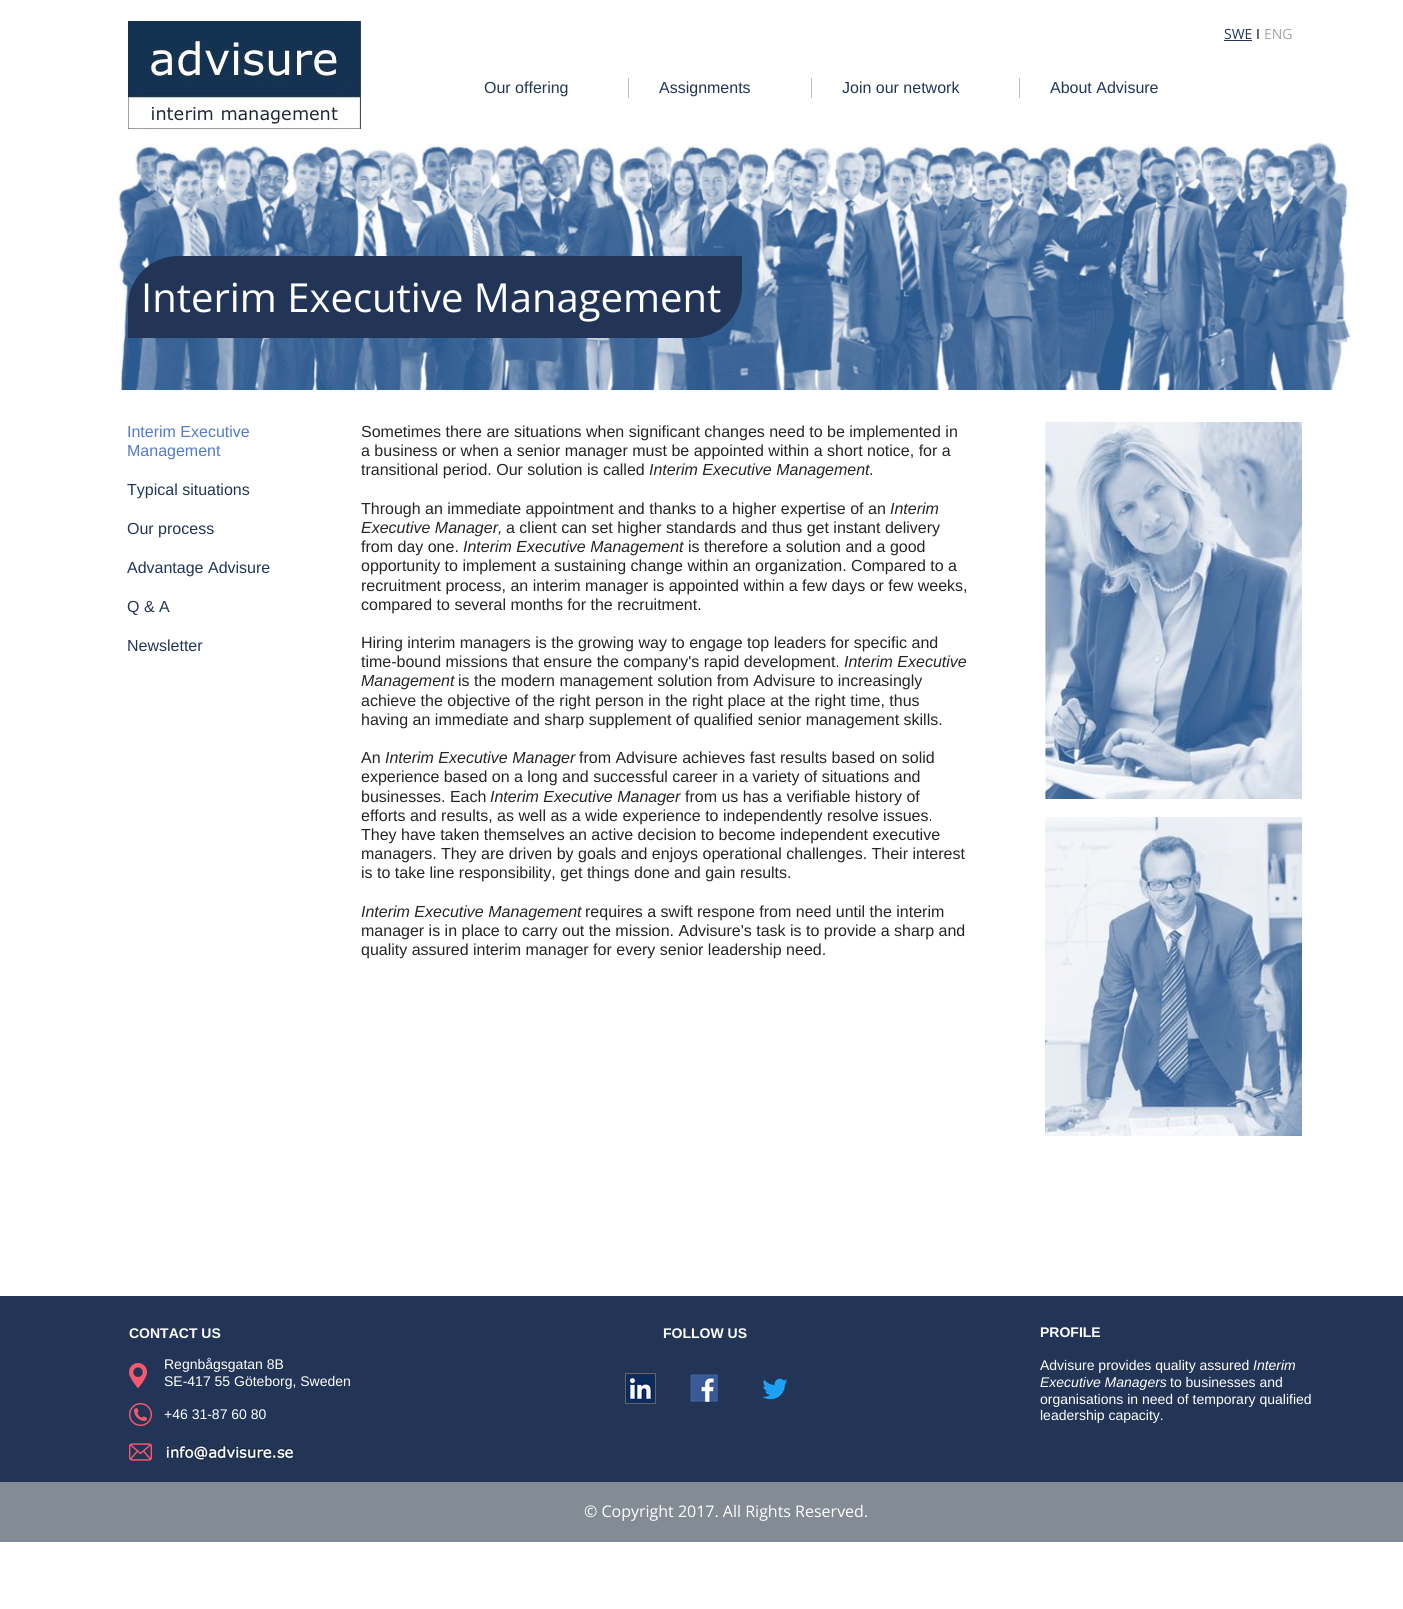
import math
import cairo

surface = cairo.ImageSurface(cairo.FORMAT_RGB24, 1403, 1609)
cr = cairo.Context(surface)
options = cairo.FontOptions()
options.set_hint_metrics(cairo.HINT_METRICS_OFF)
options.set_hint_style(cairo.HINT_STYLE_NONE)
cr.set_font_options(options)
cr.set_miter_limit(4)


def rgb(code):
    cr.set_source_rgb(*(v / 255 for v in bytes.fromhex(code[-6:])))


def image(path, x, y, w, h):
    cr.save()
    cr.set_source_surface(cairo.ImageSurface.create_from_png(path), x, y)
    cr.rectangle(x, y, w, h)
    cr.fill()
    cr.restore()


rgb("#ffffff")
cr.paint()
image("img/1.png", 128, 21, 233, 108)
for x, y, w, h, color in [
    (1224, 40, 28, 1, "#233557"),
    (628, 78, 1, 20, "#bfbfbf"),
    (811, 78, 1, 20, "#bfbfbf"),
    (1019, 78, 1, 20, "#bfbfbf"),
]:
    rgb(color)
    cr.rectangle(x, y, w, h)
    cr.fill()
image("img/2.png", 117, 141, 1235, 249)
rgb("#233557")
cr.new_path()
cr.move_to(178, 256)
cr.line_to(742, 256)
cr.line_to(742, 288)
cr.curve_to(742, 315.5, 719.5, 338, 692, 338)
cr.line_to(128, 338)
cr.line_to(128, 306)
cr.curve_to(128, 278.5, 150.5, 256, 178, 256)
cr.close_path()
cr.fill()
image("img/3.png", 1045, 422, 257, 377)
image("img/4.png", 1045, 817, 257, 319)
cr.rectangle(0, 1296, 1403, 186)
cr.fill()
image("img/5.png", 129, 1363, 18, 25)
image("img/6.png", 129, 1403, 23, 23)
image("img/7.png", 129, 1443, 23, 18)
image("img/8.png", 161, 1441, 135, 21)
cr.rectangle(625.5, 1373.5, 30, 30)
rgb("#646464")
cr.set_line_width(1)
cr.stroke()
image("img/9.png", 626, 1374, 29, 29)
image("img/10.png", 690, 1374, 28, 28)
image("img/11.png", 762, 1378, 26, 22)
rgb("#838b94")
cr.rectangle(0, 1482, 1403, 60)
cr.fill()
cr.select_font_face("Open Sans")
cr.set_font_size(14)
rgb("#233557")
cr.move_to(1224, 39)
cr.show_text("SWE")
rgb("#000000")
cr.move_to(1256, 39)
cr.show_text("I")
rgb("#a5a5a5")
cr.move_to(1264, 39)
cr.show_text("ENG")
cr.select_font_face("Liberation Sans")
cr.set_font_size(16)
rgb("#233557")
for x, y, s in [
    (484, 93, "Our offering"),
    (659, 93, "Assignments"),
    (842, 93, "Join our network"),
    (1050, 93, "About Advisure"),
]:
    cr.move_to(x, y)
    cr.show_text(s)
cr.select_font_face("Open Sans")
cr.set_font_size(40)
rgb("#ffffff")
cr.move_to(141, 312)
cr.show_text("Interim Executive Management")
cr.select_font_face("Liberation Sans")
cr.set_font_size(16)
rgb("#517bca")
cr.move_to(127, 437)
cr.show_text("Interim Executive")
cr.move_to(127, 456)
cr.show_text("Management")
rgb("#233557")
for x, y, s in [
    (127, 495, "Typical situations"),
    (127, 534, "Our process"),
    (127, 573, "Advantage Advisure"),
    (127, 612, "Q & A"),
    (127, 651, "Newsletter"),
]:
    cr.move_to(x, y)
    cr.show_text(s)
rgb("#252525")
for x, y, s in [
    (361, 437, "Sometimes there are situations when significant changes need to be implemented in"),
    (361, 456, "a business or when a senior manager must be appointed within a short notice, for a"),
    (361, 475, "transitional period. Our solution is called"),
]:
    cr.move_to(x, y)
    cr.show_text(s)
cr.select_font_face("Liberation Sans", cairo.FONT_SLANT_ITALIC)
cr.move_to(649, 475)
cr.show_text("Interim Executive Management")
cr.select_font_face("Liberation Sans")
cr.move_to(869, 475)
cr.show_text(".")
cr.move_to(361, 514)
cr.show_text("Through an immediate appointment and thanks to a higher expertise of an")
cr.select_font_face("Liberation Sans", cairo.FONT_SLANT_ITALIC)
cr.move_to(890, 514)
cr.show_text("Interim")
cr.move_to(361, 533)
cr.show_text("Executive Manager,")
cr.select_font_face("Liberation Sans")
cr.move_to(506, 533)
cr.show_text("a client can set higher standards and thus get instant delivery")
cr.move_to(361, 552)
cr.show_text("from day one.")
cr.select_font_face("Liberation Sans", cairo.FONT_SLANT_ITALIC)
cr.move_to(463, 552)
cr.show_text("Interim Executive Management")
cr.select_font_face("Liberation Sans")
for x, y, s in [
    (688, 552, "is therefore a solution and a good"),
    (361, 571, "opportunity to implement a sustaining change within an organization. Compared to a"),
    (361, 591, "recruitment process, an interim manager is appointed within a few days or few weeks,"),
    (361, 610, "compared to several months for the recruitment."),
    (361, 648, "Hiring interim managers is the growing way to engage top leaders for specific and"),
    (361, 667, "time-bound missions that ensure the company's rapid development."),
]:
    cr.move_to(x, y)
    cr.show_text(s)
cr.select_font_face("Liberation Sans", cairo.FONT_SLANT_ITALIC)
cr.move_to(844, 667)
cr.show_text("Interim Executive")
cr.move_to(361, 686)
cr.show_text("Management")
cr.select_font_face("Liberation Sans")
for x, y, s in [
    (458, 686, "is the modern management solution from Advisure to increasingly"),
    (361, 706, "achieve the objective of the right person in the right place at the right time, thus"),
    (361, 725, "having an immediate and sharp supplement of qualified senior management skills."),
    (361, 763, "An"),
]:
    cr.move_to(x, y)
    cr.show_text(s)
cr.select_font_face("Liberation Sans", cairo.FONT_SLANT_ITALIC)
cr.move_to(385, 763)
cr.show_text("Interim Executive Manager")
cr.select_font_face("Liberation Sans")
for x, y, s in [
    (579, 763, "from Advisure achieves fast results based on solid"),
    (361, 782, "experience based on a long and successful career in a variety of situations and"),
    (361, 802, "businesses. Each"),
]:
    cr.move_to(x, y)
    cr.show_text(s)
cr.select_font_face("Liberation Sans", cairo.FONT_SLANT_ITALIC)
cr.move_to(490, 802)
cr.show_text("Interim Executive Manager")
cr.select_font_face("Liberation Sans")
for x, y, s in [
    (685, 802, "from us has a verifiable history of"),
    (361, 821, "efforts and results, as well as a wide experience to independently resolve issues."),
    (361, 840, "They have taken themselves an active decision to become independent executive"),
    (361, 859, "managers. They are driven by goals and enjoys operational challenges. Their interest"),
    (361, 878, "is to take line responsibility, get things done and gain results."),
]:
    cr.move_to(x, y)
    cr.show_text(s)
cr.select_font_face("Liberation Sans", cairo.FONT_SLANT_ITALIC)
cr.move_to(361, 917)
cr.show_text("Interim Executive Management")
cr.select_font_face("Liberation Sans")
for x, y, s in [
    (585, 917, "requires a swift respone from need until the interim"),
    (361, 936, "manager is in place to carry out the mission. Advisure's task is to provide a sharp and"),
    (361, 955, "quality assured interim manager for every senior leadership need."),
]:
    cr.move_to(x, y)
    cr.show_text(s)
cr.select_font_face("Liberation Sans", cairo.FONT_SLANT_NORMAL, cairo.FONT_WEIGHT_BOLD)
cr.set_font_size(14)
rgb("#ffffff")
cr.move_to(129, 1338)
cr.show_text("CONTACT US")
cr.select_font_face("Liberation Sans")
for x, y, s in [
    (164, 1369, "Regnbågsgatan 8B"),
    (164, 1386, "SE-417 55 Göteborg, Sweden"),
    (164, 1419, "+46 31-87 60 80"),
]:
    cr.move_to(x, y)
    cr.show_text(s)
cr.select_font_face("Liberation Sans", cairo.FONT_SLANT_NORMAL, cairo.FONT_WEIGHT_BOLD)
cr.move_to(663, 1338)
cr.show_text("FOLLOW US")
cr.move_to(1040, 1337)
cr.show_text("PROFILE")
cr.select_font_face("Liberation Sans")
cr.move_to(1040, 1370)
cr.show_text("Advisure provides quality assured")
cr.select_font_face("Liberation Sans", cairo.FONT_SLANT_ITALIC)
cr.move_to(1253, 1370)
cr.show_text("Interim")
cr.move_to(1040, 1387)
cr.show_text("Executive Managers")
cr.select_font_face("Liberation Sans")
for x, y, s in [
    (1170, 1387, "to businesses and"),
    (1040, 1404, "organisations in need of temporary qualified"),
    (1040, 1420, "leadership capacity."),
]:
    cr.move_to(x, y)
    cr.show_text(s)
cr.select_font_face("Open Sans")
cr.set_font_size(16)
cr.move_to(584, 1517)
cr.show_text("© Copyright 2017. All Rights Reserved.")
surface.write_to_png("page.png")
